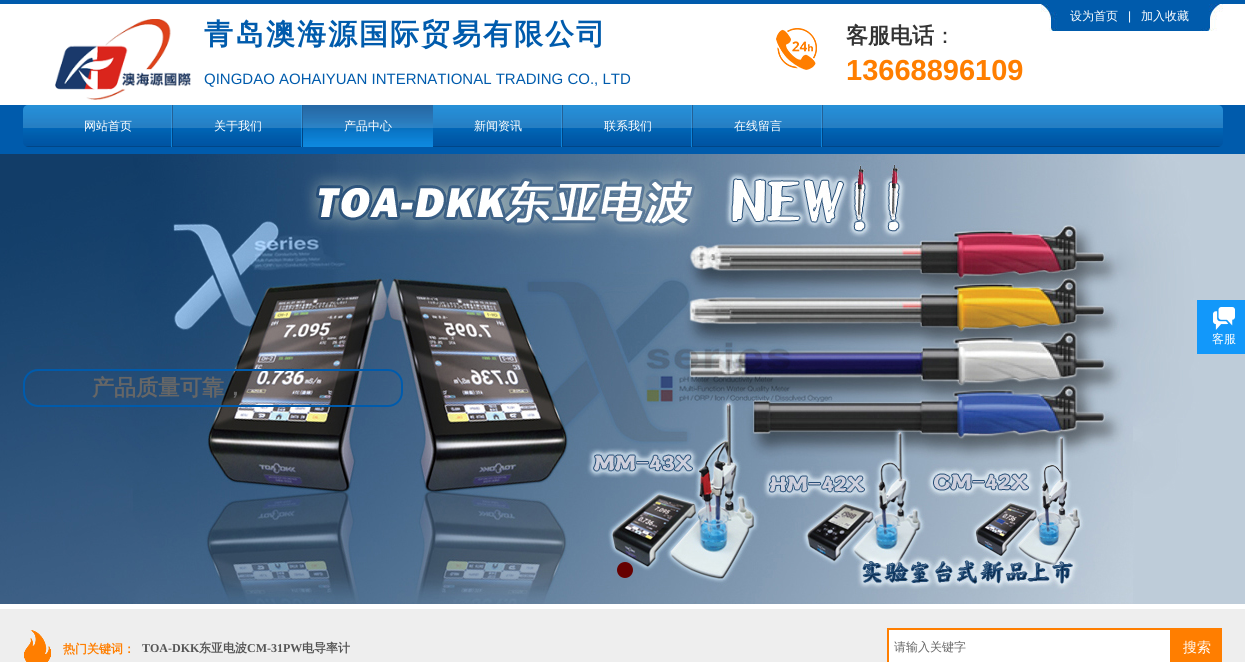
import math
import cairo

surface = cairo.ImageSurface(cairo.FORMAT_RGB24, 1245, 662)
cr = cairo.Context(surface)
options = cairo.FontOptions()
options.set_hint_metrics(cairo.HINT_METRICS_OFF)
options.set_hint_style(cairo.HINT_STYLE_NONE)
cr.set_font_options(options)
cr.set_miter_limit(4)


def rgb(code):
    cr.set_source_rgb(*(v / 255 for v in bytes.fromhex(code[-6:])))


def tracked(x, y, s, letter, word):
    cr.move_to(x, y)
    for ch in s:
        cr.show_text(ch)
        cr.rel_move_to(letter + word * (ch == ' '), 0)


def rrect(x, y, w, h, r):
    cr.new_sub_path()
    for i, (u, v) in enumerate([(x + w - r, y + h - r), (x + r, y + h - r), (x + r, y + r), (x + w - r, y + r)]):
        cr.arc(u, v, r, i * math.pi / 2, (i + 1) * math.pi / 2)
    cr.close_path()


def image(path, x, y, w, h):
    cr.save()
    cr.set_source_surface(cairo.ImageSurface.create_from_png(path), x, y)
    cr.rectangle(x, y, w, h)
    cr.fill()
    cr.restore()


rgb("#ffffff")
cr.paint()
rgb("#005bac")
cr.rectangle(0, 0, 1245, 4)
cr.fill()
image("img/1.png", 1041, 4, 182, 27)
image("img/2.png", 55, 19, 136, 81)
image("img/3.png", 776, 28, 41, 42)
cr.rectangle(0, 105, 1245, 49)
cr.fill()
image("img/4.png", 23, 105, 1200, 42)
image("img/5.png", 171, 105, 2, 42)
image("img/5.png", 301, 105, 2, 42)
image("img/6.png", 303, 105, 130, 42)
image("img/5.png", 561, 105, 2, 42)
image("img/5.png", 691, 105, 2, 42)
image("img/5.png", 821, 105, 2, 42)
image("img/7.png", 0, 154, 1245, 450)
rgb("#660000")
cr.arc(625, 570, 7, 0, 2 * math.pi)
cr.fill_preserve()
cr.stroke()
rrect(24, 370, 378, 36, 14)
rgb("#005bac")
cr.stroke()
rgb("#eeeeee")
cr.rectangle(0, 609, 1245, 53)
cr.fill()
image("img/8.png", 24, 630, 27, 32)
rgb("#ffffff")
cr.rectangle(888, 629, 283, 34)
cr.fill_preserve()
rgb("#ff7e00")
cr.stroke()
cr.rectangle(1172, 628, 50, 34)
cr.fill()
rgb("#1298fa")
cr.rectangle(1197, 300, 48, 54)
cr.fill()
image("img/9.png", 1213, 307, 22, 23)
cr.select_font_face("WenQuanYi Zen Hei Medium")
cr.set_font_size(12)
rgb("#ffffff")
cr.move_to(1070, 20)
cr.show_text("设为首页")
cr.select_font_face("Liberation Sans")
cr.move_to(1128, 20)
cr.show_text("|")
cr.select_font_face("WenQuanYi Zen Hei Medium")
cr.move_to(1141, 20)
cr.show_text("加入收藏")
cr.select_font_face("WenQuanYi Zen Hei", cairo.FONT_SLANT_NORMAL, cairo.FONT_WEIGHT_BOLD)
cr.set_font_size(29)
rgb("#005bac")
tracked(204, 44, "青岛澳海源国际贸易有限公司", 2, 0)
cr.set_font_size(22)
rgb("#333333")
cr.move_to(846, 43)
cr.show_text("客服电话")
cr.select_font_face("WenQuanYi Zen Hei Medium")
cr.move_to(934, 43)
cr.show_text("：")
cr.select_font_face("Liberation Sans")
cr.set_font_size(15)
rgb("#005bac")
cr.move_to(204, 84)
cr.show_text("QINGDAO AOHAIYUAN INTERNATIONAL TRADING CO., LTD")
cr.select_font_face("Liberation Sans", cairo.FONT_SLANT_NORMAL, cairo.FONT_WEIGHT_BOLD)
cr.set_font_size(29)
rgb("#ff7e00")
cr.move_to(846, 80)
cr.show_text("13668896109")
cr.select_font_face("WenQuanYi Zen Hei Medium")
cr.set_font_size(12)
rgb("#ffffff")
for x, y, s in [
    (84, 130, "网站首页"),
    (214, 130, "关于我们"),
    (344, 130, "产品中心"),
    (474, 130, "新闻资讯"),
    (604, 130, "联系我们"),
    (734, 130, "在线留言"),
]:
    cr.move_to(x, y)
    cr.show_text(s)
cr.select_font_face("WenQuanYi Zen Hei", cairo.FONT_SLANT_NORMAL, cairo.FONT_WEIGHT_BOLD)
cr.set_font_size(22)
rgb("#666666")
cr.move_to(92, 395)
cr.show_text("产品质量可靠，")
cr.set_font_size(12)
rgb("#ff7e00")
cr.move_to(63, 653)
cr.show_text("热门关键词：")
cr.save()
cr.rectangle(142, 640, 395, 22)
cr.clip()
cr.select_font_face("Liberation Serif", cairo.FONT_SLANT_NORMAL, cairo.FONT_WEIGHT_BOLD)
rgb("#555555")
cr.move_to(142, 652)
cr.show_text("TOA-DKK")
cr.restore()
rgb("#555555")
cr.move_to(199, 652)
cr.show_text("东亚电波")
cr.select_font_face("Liberation Serif", cairo.FONT_SLANT_NORMAL, cairo.FONT_WEIGHT_BOLD)
cr.move_to(247, 652)
cr.show_text("CM-31PW")
cr.select_font_face("WenQuanYi Zen Hei", cairo.FONT_SLANT_NORMAL, cairo.FONT_WEIGHT_BOLD)
cr.move_to(302, 652)
cr.show_text("电导率计")
cr.select_font_face("WenQuanYi Zen Hei Medium")
rgb("#666666")
cr.move_to(894, 651)
cr.show_text("请输入关键字")
cr.set_font_size(14)
rgb("#ffffff")
cr.move_to(1183, 652)
cr.show_text("搜索")
cr.set_font_size(12)
cr.move_to(1212, 343)
cr.show_text("客服")
surface.write_to_png("page.png")
